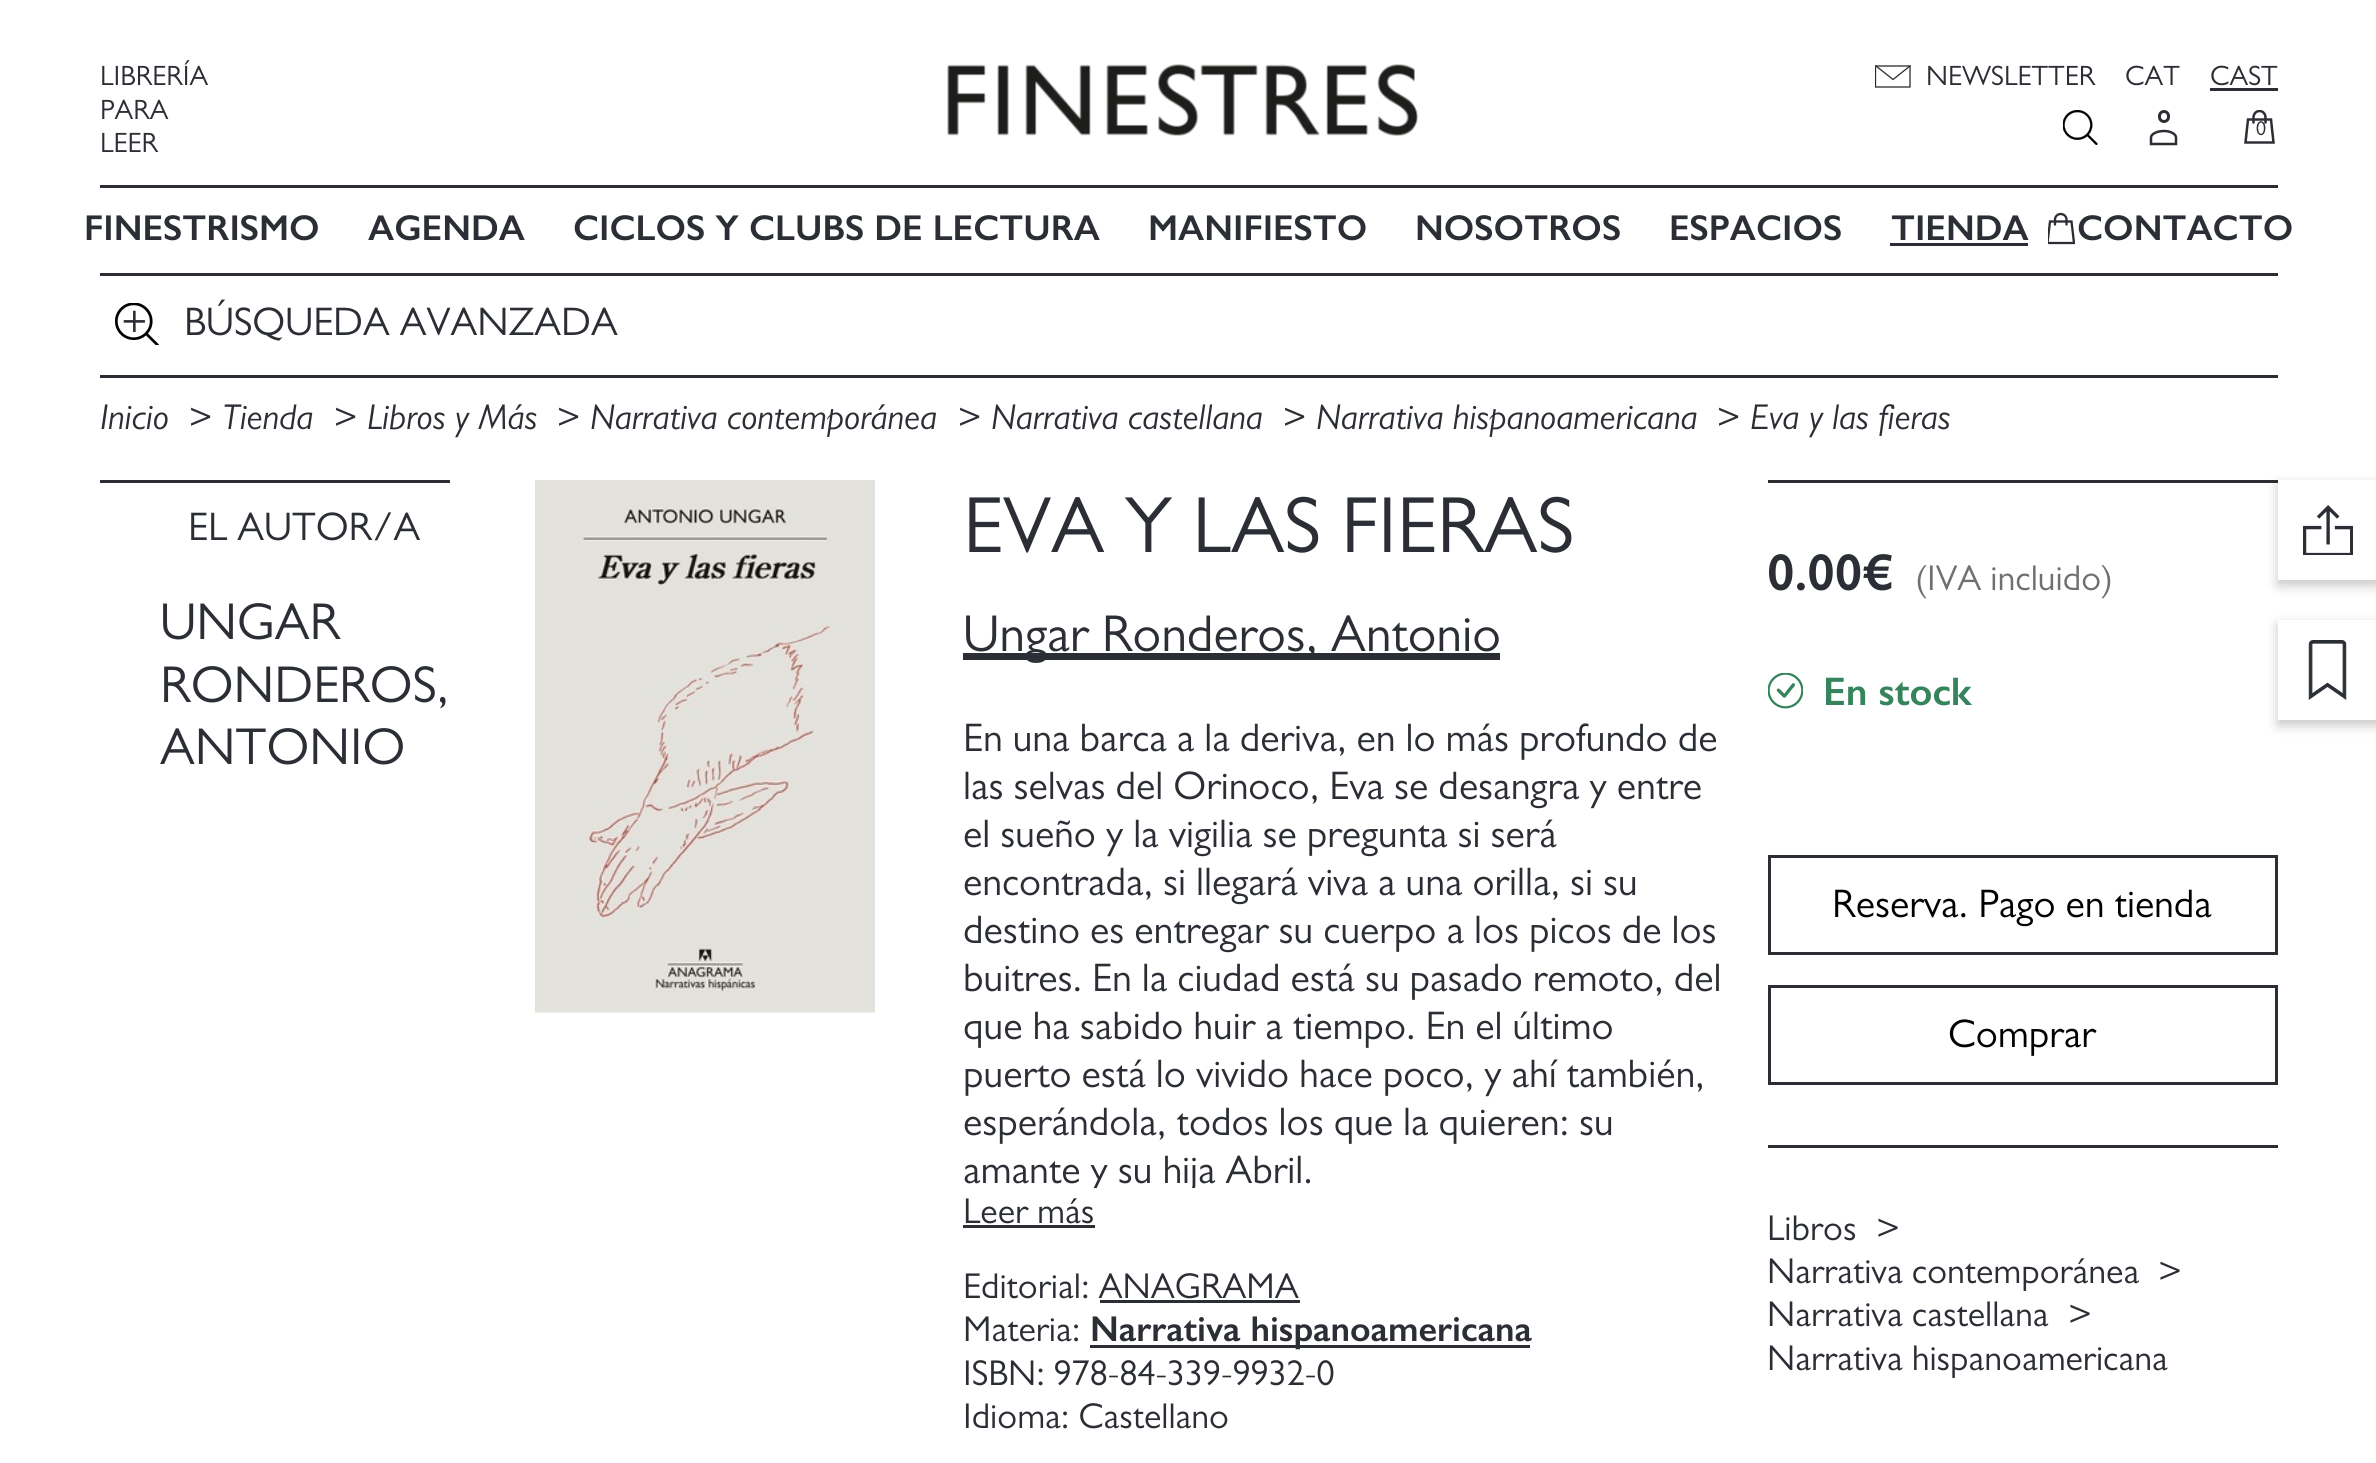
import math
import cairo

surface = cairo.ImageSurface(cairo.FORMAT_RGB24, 2376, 1463)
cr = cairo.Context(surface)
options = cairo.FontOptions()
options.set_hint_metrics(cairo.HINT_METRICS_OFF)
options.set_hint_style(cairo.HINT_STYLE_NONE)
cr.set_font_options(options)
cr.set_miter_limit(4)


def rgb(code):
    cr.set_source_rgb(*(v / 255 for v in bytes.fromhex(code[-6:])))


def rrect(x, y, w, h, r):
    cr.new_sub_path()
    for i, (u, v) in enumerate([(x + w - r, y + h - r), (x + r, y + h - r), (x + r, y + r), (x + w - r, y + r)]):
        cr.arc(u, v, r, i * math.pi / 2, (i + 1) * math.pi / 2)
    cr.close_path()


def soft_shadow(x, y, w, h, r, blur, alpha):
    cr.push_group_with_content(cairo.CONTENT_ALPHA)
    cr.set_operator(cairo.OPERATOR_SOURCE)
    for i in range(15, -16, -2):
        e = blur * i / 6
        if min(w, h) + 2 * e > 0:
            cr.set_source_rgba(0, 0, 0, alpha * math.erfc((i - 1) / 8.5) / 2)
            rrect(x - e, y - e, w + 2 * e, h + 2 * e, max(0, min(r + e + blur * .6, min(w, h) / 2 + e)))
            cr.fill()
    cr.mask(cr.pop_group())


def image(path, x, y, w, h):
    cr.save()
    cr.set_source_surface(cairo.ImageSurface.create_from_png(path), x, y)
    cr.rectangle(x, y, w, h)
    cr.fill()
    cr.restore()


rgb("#ffffff")
cr.paint()
image("img/1.png", 947, 64, 471, 72)
cr.save()
cr.rectangle(1875, 65, 38, 23)
cr.clip()
cr.new_path()
cr.move_to(1875.5, 66)
cr.line_to(1910, 66)
cr.line_to(1910, 87)
cr.line_to(1875.5, 87)
cr.close_path()
rgb("#302c2a")
cr.set_line_width(1.3)
cr.set_line_cap(cairo.LINE_CAP_SQUARE)
cr.stroke()
cr.restore()
cr.new_path()
cr.move_to(1876, 66)
cr.line_to(1893, 79.5)
cr.line_to(1910, 66)
rgb("#302c2a")
cr.set_line_width(1.3)
cr.set_line_cap(cairo.LINE_CAP_SQUARE)
cr.stroke()
rgb("#2b2e34")
cr.rectangle(2210, 88, 68, 3)
cr.fill()
image("img/2.png", 2063, 110, 35, 35)
rrect(2159.5, 111.5, 9, 10, 4.5)
cr.set_line_width(3)
cr.set_line_cap(cairo.LINE_CAP_BUTT)
cr.stroke()
cr.new_path()
cr.move_to(2164, 131)
cr.curve_to(2170.5, 131, 2176, 134, 2176, 137.5)
cr.line_to(2176, 144)
cr.line_to(2151, 144)
cr.line_to(2151, 137.5)
cr.curve_to(2151, 134, 2157, 131, 2164, 131)
cr.close_path()
cr.set_line_width(2.5)
cr.stroke()
cr.new_path()
cr.move_to(2248, 119.5)
cr.line_to(2245.5, 142.5)
cr.line_to(2273.5, 142.5)
cr.line_to(2271, 119.5)
cr.close_path()
cr.set_line_cap(cairo.LINE_CAP_ROUND)
cr.stroke()
cr.save()
cr.rectangle(2243, 110, 35, 35)
cr.clip()
cr.new_path()
cr.move_to(2265.5, 122.5)
cr.line_to(2265.5, 117.5)
cr.curve_to(2265.5, 114, 2263, 111, 2259.5, 111)
cr.curve_to(2256, 111, 2253.5, 114, 2253.5, 117.5)
cr.line_to(2253.5, 122.5)
cr.stroke()
cr.restore()
for x, y, w, h, color in [
    (100, 185, 2178, 3, "#2b2e34"),
    (100, 273, 2178, 3, "#2b2e34"),
    (1890, 243, 138, 3, "#2b2e34"),
]:
    rgb(color)
    cr.rectangle(x, y, w, h)
    cr.fill()
cr.save()
cr.rectangle(2048, 213, 27, 32)
cr.clip()
cr.new_path()
cr.move_to(2050, 221.5)
cr.line_to(2047.5, 243)
cr.line_to(2074, 243)
cr.line_to(2071.5, 221.5)
cr.close_path()
cr.set_line_width(2.3)
cr.stroke()
cr.restore()
cr.new_path()
cr.move_to(2066.5, 224.5)
cr.line_to(2066.5, 219.5)
cr.curve_to(2066.5, 216.5, 2064, 214, 2060.5, 214)
cr.curve_to(2057.5, 214, 2055, 216.5, 2055, 219.5)
cr.line_to(2055, 224.5)
cr.set_line_width(2.3)
cr.stroke()
cr.rectangle(100, 375, 2178, 3)
cr.fill()
image("img/3.png", 115, 303, 44, 42)
cr.rectangle(100, 480, 350, 3)
cr.fill()
image("img/4.png", 535, 480, 340, 533)
for x, y, w, h, color in [
    (963, 653, 537, 7, "#2b2e34"),
    (963, 1225, 132, 3, "#2b2e34"),
    (1100, 1300, 200, 3, "#2b2e34"),
    (1090, 1345, 440, 3, "#2b2e34"),
    (1768, 480, 510, 3, "#2b2e34"),
]:
    rgb(color)
    cr.rectangle(x, y, w, h)
    cr.fill()
image("img/5.png", 1768, 673, 35, 36)
cr.rectangle(1768, 1145, 510, 3)
cr.fill()
cr.rectangle(1769.5, 856.5, 507, 97)
cr.set_line_width(3)
cr.set_line_cap(cairo.LINE_CAP_BUTT)
cr.stroke()
cr.rectangle(1769.5, 986.5, 507, 97)
cr.stroke()
cr.save()
cr.set_fill_rule(cairo.FILL_RULE_EVEN_ODD)
cr.new_path()
cr.move_to(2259, 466)
cr.line_to(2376, 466)
cr.line_to(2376, 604)
cr.line_to(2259, 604)
cr.close_path()
cr.move_to(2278, 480)
cr.line_to(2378, 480)
cr.line_to(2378, 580)
cr.line_to(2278, 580)
cr.close_path()
cr.clip()
rgb("#000000")
soft_shadow(2278, 485, 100, 100, 0, 6, 0.23)
cr.restore()
image("img/6.png", 2303, 505, 50, 50)
cr.save()
cr.set_fill_rule(cairo.FILL_RULE_EVEN_ODD)
cr.new_path()
cr.move_to(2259, 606)
cr.line_to(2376, 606)
cr.line_to(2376, 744)
cr.line_to(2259, 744)
cr.close_path()
cr.move_to(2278, 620)
cr.line_to(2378, 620)
cr.line_to(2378, 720)
cr.line_to(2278, 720)
cr.close_path()
cr.clip()
rgb("#000000")
soft_shadow(2278, 625, 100, 100, 0, 6, 0.23)
cr.restore()
image("img/7.png", 2308, 640, 39, 60)
cr.select_font_face("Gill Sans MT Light")
cr.set_font_size(28)
for x, y, s in [
    (100, 85, "LIBRERÍA"),
    (100, 119, "PARA"),
    (100, 152, "LEER"),
    (1926, 85, "NEWSLETTER"),
    (2125, 85, "CAT"),
    (2210, 85, "CAST"),
]:
    cr.move_to(x, y)
    cr.show_text(s)
cr.set_font_size(20)
cr.move_to(2256, 135)
cr.show_text("0")
cr.select_font_face("Gill Sans SemiBold")
cr.set_font_size(36)
for x, y, s in [
    (84, 240, "FINESTRISMO"),
    (368, 240, "AGENDA"),
    (573, 240, "CICLOS Y CLUBS DE LECTURA"),
    (1148, 240, "MANIFIESTO"),
    (1415, 240, "NOSOTROS"),
    (1669, 240, "ESPACIOS"),
    (1891, 240, "TIENDA"),
    (2077, 240, "CONTACTO"),
]:
    cr.move_to(x, y)
    cr.show_text(s)
cr.select_font_face("Gill Sans MT Light")
cr.set_font_size(40)
cr.move_to(121, 335)
cr.show_text("+")
cr.move_to(184, 335)
cr.show_text("BÚSQUEDA AVANZADA")
cr.select_font_face("Gill Sans MT Light", cairo.FONT_SLANT_ITALIC)
cr.set_font_size(36)
for x, y, s in [
    (100, 429, "Inicio"),
    (188, 429, ">"),
    (222, 429, "Tienda"),
    (333, 429, ">"),
    (367, 429, "Libros y Más"),
    (556, 429, ">"),
    (590, 429, "Narrativa contemporánea"),
    (957, 429, ">"),
    (991, 429, "Narrativa castellana"),
    (1282, 429, ">"),
    (1316, 429, "Narrativa hispanoamericana"),
    (1716, 429, ">"),
    (1750, 429, "Eva y las fieras"),
]:
    cr.move_to(x, y)
    cr.show_text(s)
cr.select_font_face("Gill Sans MT Light")
cr.set_font_size(40)
cr.move_to(188, 540)
cr.show_text("EL AUTOR/A")
cr.set_font_size(52)
for x, y, s in [
    (160, 639, "UNGAR"),
    (160, 702, "RONDEROS,"),
    (160, 764, "ANTONIO"),
]:
    cr.move_to(x, y)
    cr.show_text(s)
cr.set_font_size(80)
cr.move_to(963, 552)
cr.show_text("EVA Y LAS FIERAS")
cr.set_font_size(52)
cr.move_to(963, 651)
cr.show_text("Ungar Ronderos, Antonio")
cr.set_font_size(40)
for x, y, s in [
    (963, 751, "En una barca a la deriva, en lo más profundo de"),
    (963, 799, "las selvas del Orinoco, Eva se desangra y entre"),
    (963, 847, "el sueño y la vigilia se pregunta si será"),
    (963, 895, "encontrada, si llegará viva a una orilla, si su"),
    (963, 943, "destino es entregar su cuerpo a los picos de los"),
    (963, 991, "buitres. En la ciudad está su pasado remoto, del"),
    (963, 1039, "que ha sabido huir a tiempo. En el último"),
    (963, 1087, "puerto está lo vivido hace poco, y ahí también,"),
    (963, 1135, "esperándola, todos los que la quieren: su"),
]:
    cr.move_to(x, y)
    cr.show_text(s)
cr.save()
cr.rectangle(963, 715, 762, 473)
cr.clip()
cr.move_to(963, 1183)
cr.show_text("amante y su hija Abril.")
cr.restore()
cr.set_font_size(36)
for x, y, s in [
    (963, 1223, "Leer más"),
    (963, 1298, "Editorial: ANAGRAMA"),
    (963, 1341, "Materia:"),
]:
    cr.move_to(x, y)
    cr.show_text(s)
cr.select_font_face("Gill Sans SemiBold")
cr.move_to(1090, 1341)
cr.show_text("Narrativa hispanoamericana")
cr.select_font_face("Gill Sans MT Light")
cr.move_to(963, 1385)
cr.show_text("ISBN: 978-84-339-9932-0")
cr.move_to(963, 1428)
cr.show_text("Idioma: Castellano")
cr.select_font_face("Gill Sans SemiBold")
cr.set_font_size(52)
cr.move_to(1767, 590)
cr.show_text("0.00€")
cr.select_font_face("Gill Sans MT Light")
cr.set_font_size(36)
rgb("#707070")
cr.move_to(1915, 590)
cr.show_text("(IVA incluido)")
cr.select_font_face("Gill Sans SemiBold")
cr.set_font_size(40)
rgb("#35845c")
cr.move_to(1823, 705)
cr.show_text("En stock")
cr.select_font_face("Gill Sans MT Light")
rgb("#000000")
cr.move_to(1832, 917)
cr.show_text("Reserva. Pago en tienda")
cr.move_to(1948, 1047)
cr.show_text("Comprar")
cr.set_font_size(36)
rgb("#2b2e34")
for x, y, s in [
    (1767, 1240, "Libros"),
    (1876, 1240, ">"),
    (1767, 1283, "Narrativa contemporánea"),
    (2158, 1283, ">"),
    (1767, 1326, "Narrativa castellana"),
    (2068, 1326, ">"),
    (1767, 1370, "Narrativa hispanoamericana"),
]:
    cr.move_to(x, y)
    cr.show_text(s)
surface.write_to_png("page.png")
